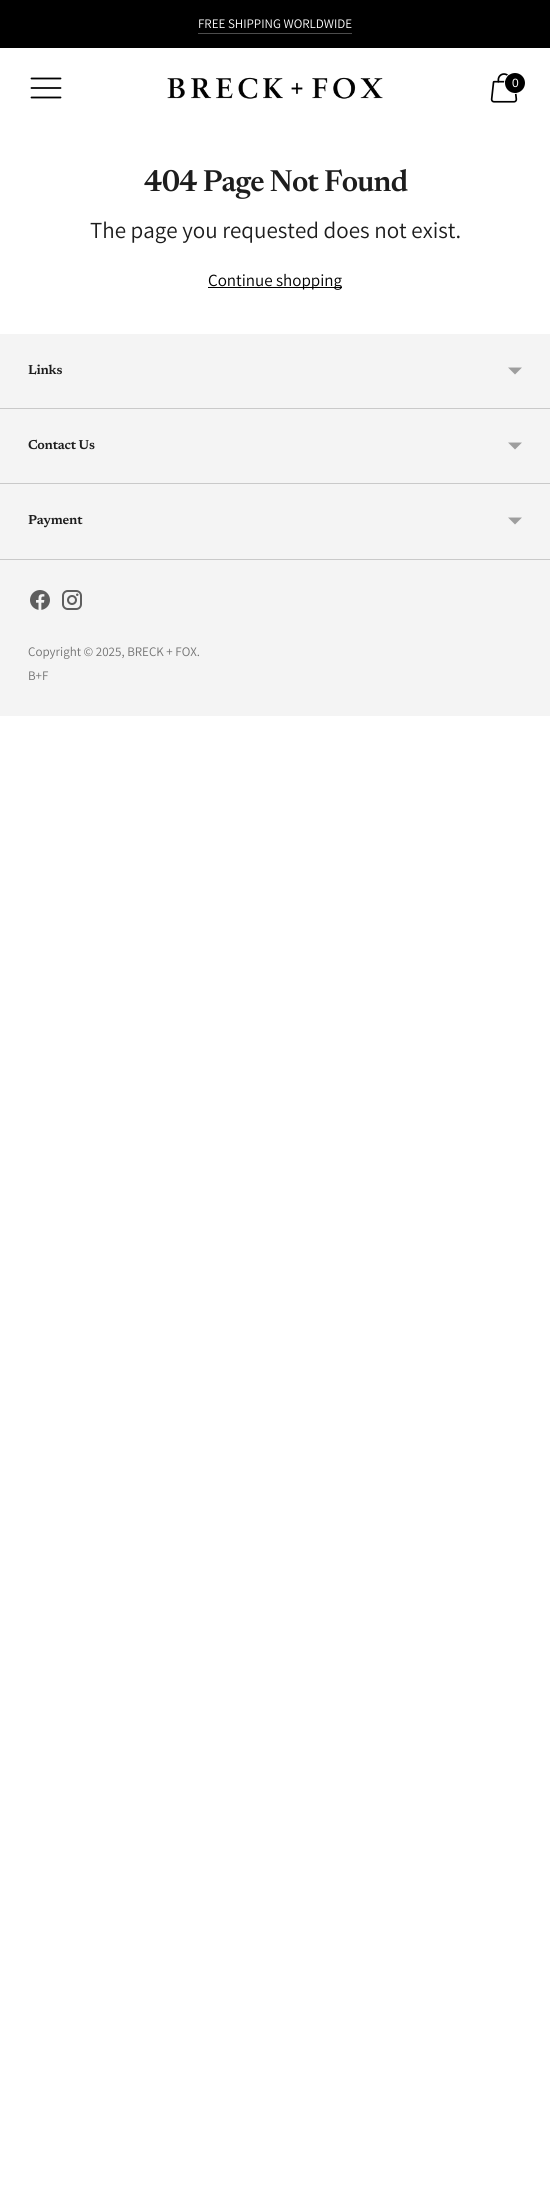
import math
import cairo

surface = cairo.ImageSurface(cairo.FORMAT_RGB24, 550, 2209)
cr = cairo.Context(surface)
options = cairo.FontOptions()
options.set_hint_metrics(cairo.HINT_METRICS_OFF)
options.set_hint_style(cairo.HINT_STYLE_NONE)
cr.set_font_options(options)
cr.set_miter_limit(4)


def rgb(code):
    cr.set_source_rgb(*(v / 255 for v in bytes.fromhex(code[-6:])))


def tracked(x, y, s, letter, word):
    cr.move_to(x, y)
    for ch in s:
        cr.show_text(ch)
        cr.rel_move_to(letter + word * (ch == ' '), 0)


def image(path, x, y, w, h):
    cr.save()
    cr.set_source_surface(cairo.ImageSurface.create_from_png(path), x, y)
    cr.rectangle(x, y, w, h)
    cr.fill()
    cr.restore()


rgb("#ffffff")
cr.paint()
rgb("#000000")
cr.rectangle(0, 0, 550, 48)
cr.fill()
rgb("#4d4d4d")
cr.rectangle(198, 33, 154, 1)
cr.fill()
cr.new_path()
cr.move_to(31.5, 88)
cr.line_to(60.5, 88)
cr.move_to(31.5, 78.5)
cr.line_to(60.5, 78.5)
cr.move_to(31.5, 97.5)
cr.line_to(60.5, 97.5)
rgb("#000000")
cr.set_line_width(1.8)
cr.set_line_cap(cairo.LINE_CAP_ROUND)
cr.set_line_join(cairo.LINE_JOIN_ROUND)
cr.stroke()
image("img/1.png", 167, 77, 216, 22)
image("img/2.png", 490, 73, 28, 30)
cr.arc(515, 83, 10.5, 0, 2 * math.pi)
rgb("#ffffff")
cr.set_line_width(1)
cr.set_line_cap(cairo.LINE_CAP_BUTT)
cr.set_line_join(cairo.LINE_JOIN_MITER)
cr.stroke()
rgb("#000000")
cr.arc(515, 83, 10, 0, 2 * math.pi)
cr.fill()
for x, y, w, h, color in [
    (208, 287, 134, 1, "#000000"),
    (0, 334, 550, 382, "#f4f4f4"),
    (0, 408, 550, 1, "#c9c9c9"),
]:
    rgb(color)
    cr.rectangle(x, y, w, h)
    cr.fill()
rgb("#9e9e9e")
cr.new_path()
cr.move_to(508, 367.5)
cr.line_to(515, 374.5)
cr.line_to(522, 367.5)
cr.close_path()
cr.fill()
rgb("#c9c9c9")
cr.rectangle(0, 483, 550, 1)
cr.fill()
rgb("#9e9e9e")
cr.new_path()
cr.move_to(508, 442.5)
cr.line_to(515, 449.5)
cr.line_to(522, 442.5)
cr.close_path()
cr.fill()
rgb("#c9c9c9")
cr.rectangle(0, 559, 550, 1)
cr.fill()
rgb("#9e9e9e")
cr.new_path()
cr.move_to(508, 517.5)
cr.line_to(515, 524.5)
cr.line_to(522, 517.5)
cr.close_path()
cr.fill()
image("img/3.png", 30, 590, 20, 20)
image("img/4.png", 62, 590, 20, 20)
cr.select_font_face("Assistant")
cr.set_font_size(13)
rgb("#ffffff")
cr.move_to(198, 28)
cr.show_text("FREE SHIPPING WORLDWIDE")
cr.select_font_face("Liberation Sans")
cr.set_font_size(12)
cr.move_to(512, 87)
cr.show_text("0")
cr.select_font_face("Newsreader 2 SemiBold")
cr.set_font_size(30.5)
rgb("#1d1d1d")
tracked(144, 191, "404 Page Not Found", -0.75, 0)
cr.select_font_face("Assistant")
cr.set_font_size(23)
cr.move_to(90, 238)
cr.show_text("The page you requested does not exist.")
cr.set_font_size(17)
rgb("#000000")
cr.move_to(208, 286)
cr.show_text("Continue shopping")
cr.select_font_face("Newsreader SemiBold")
cr.set_font_size(13)
rgb("#1d1d1d")
for x, y, s in [
    (28, 374, "Links"),
    (28, 449, "Contact Us"),
    (28, 524, "Payment"),
]:
    tracked(x, y, s, -0.25, 0)
cr.select_font_face("Assistant")
rgb("#737373")
cr.move_to(28, 656)
cr.show_text("Copyright © 2025, BRECK + FOX.")
cr.move_to(28, 680)
cr.show_text("B+F")
surface.write_to_png("page.png")
